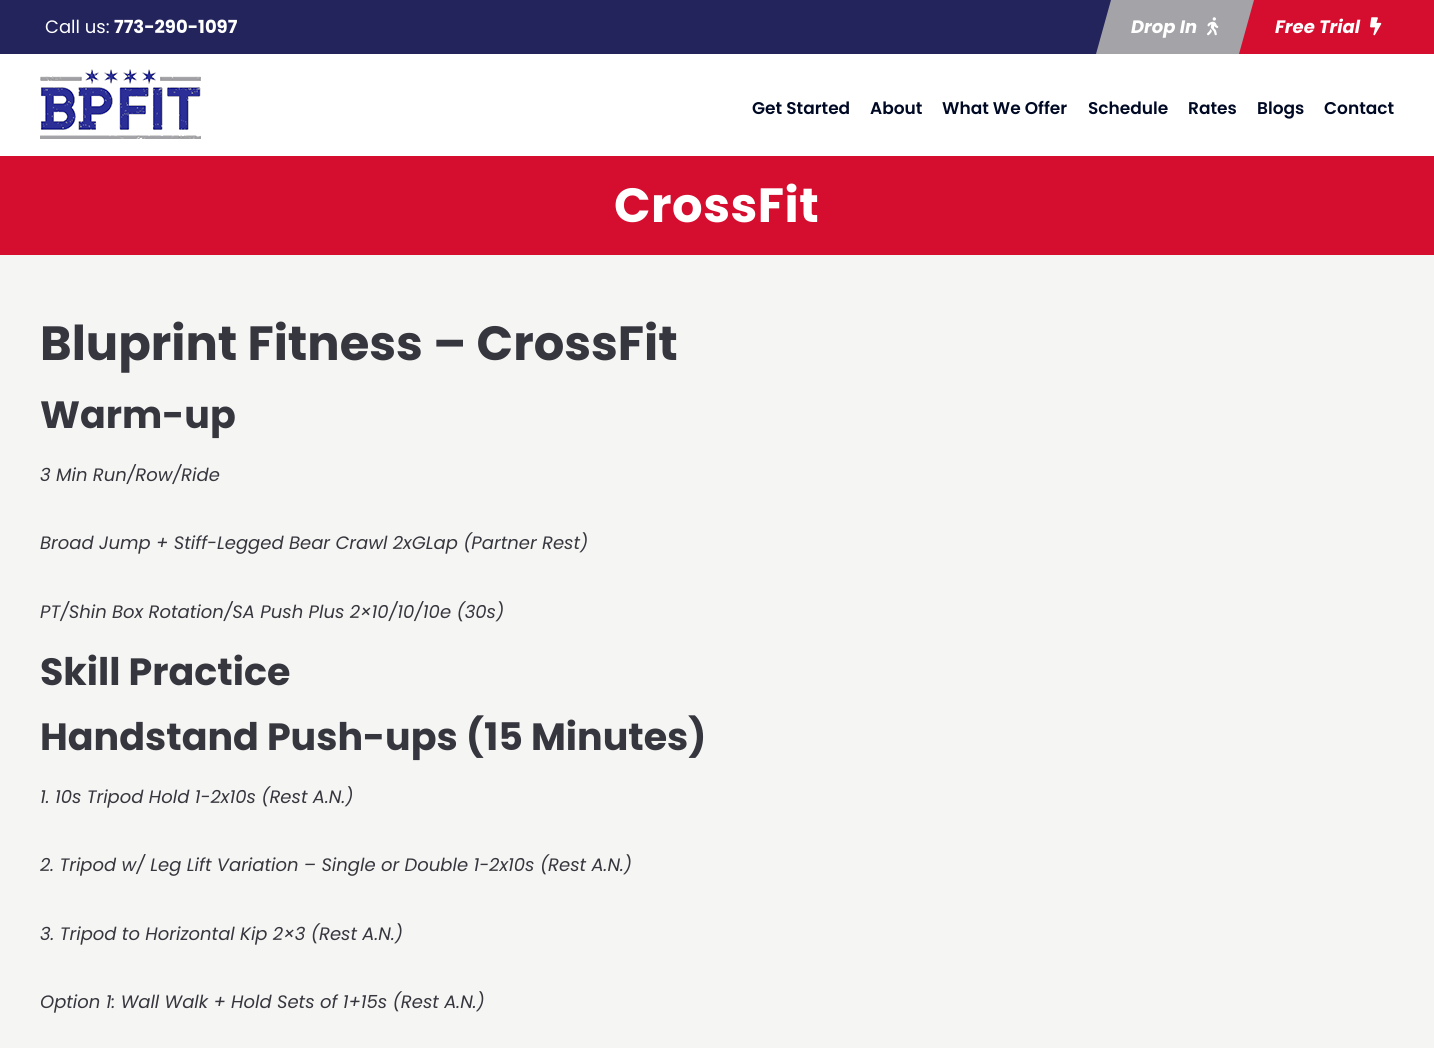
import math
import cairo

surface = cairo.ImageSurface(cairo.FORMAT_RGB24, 1434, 1048)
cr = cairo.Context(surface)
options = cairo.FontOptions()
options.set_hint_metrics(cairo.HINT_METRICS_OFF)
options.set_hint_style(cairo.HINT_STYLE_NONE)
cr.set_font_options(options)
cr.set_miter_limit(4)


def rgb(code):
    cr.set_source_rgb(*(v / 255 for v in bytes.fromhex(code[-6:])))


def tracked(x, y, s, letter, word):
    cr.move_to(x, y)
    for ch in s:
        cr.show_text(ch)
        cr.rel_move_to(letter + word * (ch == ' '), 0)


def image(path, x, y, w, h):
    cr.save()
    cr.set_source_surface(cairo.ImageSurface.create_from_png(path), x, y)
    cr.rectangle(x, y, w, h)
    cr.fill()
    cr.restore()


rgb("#f5f5f3")
cr.paint()
rgb("#22245b")
cr.rectangle(0, 0, 1111, 54)
cr.fill()
rgb("#a3a3a8")
cr.new_path()
cr.move_to(1111, 0)
cr.line_to(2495, 0)
cr.line_to(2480, 54)
cr.line_to(1096, 54)
cr.close_path()
cr.fill()
image("img/1.png", 1207, 17, 12, 19)
gradient = cairo.LinearGradient(-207, 27, 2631, 27)
gradient.add_color_stop_rgba(0, 0.133, 0.133, 0.133, 1)
gradient.add_color_stop_rgba(0.5, 0.133, 0.141, 0.357, 1)
gradient.add_color_stop_rgba(0.5, 0.835, 0.051, 0.18, 1)
gradient.add_color_stop_rgba(1, 0.835, 0.051, 0.18, 1)
cr.set_source(gradient)
cr.new_path()
cr.move_to(1254, 0)
cr.line_to(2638, 0)
cr.line_to(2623, 54)
cr.line_to(1239, 54)
cr.close_path()
cr.fill()
image("img/2.png", 1370, 17, 12, 19)
rgb("#ffffff")
cr.rectangle(0, 54, 1434, 102)
cr.fill()
image("img/3.png", 40, 69, 161, 70)
rgb("#d50d2e")
cr.rectangle(0, 156, 1434, 99)
cr.fill()
cr.select_font_face("Poppins")
cr.set_font_size(18)
rgb("#ffffff")
cr.move_to(45, 33)
cr.show_text("Call us:")
cr.select_font_face("Poppins", cairo.FONT_SLANT_NORMAL, cairo.FONT_WEIGHT_BOLD)
cr.move_to(114, 33)
cr.show_text("773-290-1097")
cr.select_font_face("Poppins", cairo.FONT_SLANT_ITALIC, cairo.FONT_WEIGHT_BOLD)
cr.move_to(1131, 33)
cr.show_text("Drop In")
cr.move_to(1275, 33)
cr.show_text("Free Trial")
cr.select_font_face("Poppins SemiBold")
cr.set_font_size(17)
rgb("#000924")
for x, y, s in [
    (752, 114, "Get Started"),
    (870, 114, "About"),
    (942, 114, "What We Offer"),
    (1088, 114, "Schedule"),
    (1188, 114, "Rates"),
    (1257, 114, "Blogs"),
    (1324, 114, "Contact"),
]:
    cr.move_to(x, y)
    cr.show_text(s)
cr.select_font_face("Poppins", cairo.FONT_SLANT_NORMAL, cairo.FONT_WEIGHT_BOLD)
cr.set_font_size(48)
rgb("#ffffff")
tracked(614, 222, "CrossFit", 0.5, 0)
rgb("#36363e")
cr.move_to(40, 360)
cr.show_text("Bluprint Fitness – CrossFit")
cr.set_font_size(38)
cr.move_to(40, 428)
cr.show_text("Warm-up")
cr.select_font_face("Poppins", cairo.FONT_SLANT_ITALIC)
cr.set_font_size(18)
for x, y, s in [
    (40, 481, "3 Min Run/Row/Ride"),
    (40, 549, "Broad Jump + Stiff-Legged Bear Crawl 2xGLap (Partner Rest)"),
    (40, 618, "PT/Shin Box Rotation/SA Push Plus 2×10/10/10e (30s)"),
]:
    cr.move_to(x, y)
    cr.show_text(s)
cr.select_font_face("Poppins", cairo.FONT_SLANT_NORMAL, cairo.FONT_WEIGHT_BOLD)
cr.set_font_size(38)
cr.move_to(40, 685)
cr.show_text("Skill Practice")
cr.move_to(40, 750)
cr.show_text("Handstand Push-ups (15 Minutes)")
cr.select_font_face("Poppins", cairo.FONT_SLANT_ITALIC)
cr.set_font_size(18)
for x, y, s in [
    (40, 803, "1. 10s Tripod Hold 1-2x10s (Rest A.N.)"),
    (40, 871, "2. Tripod w/ Leg Lift Variation – Single or Double 1-2x10s (Rest A.N.)"),
    (40, 940, "3. Tripod to Horizontal Kip 2×3 (Rest A.N.)"),
    (40, 1008, "Option 1: Wall Walk + Hold Sets of 1+15s (Rest A.N.)"),
]:
    cr.move_to(x, y)
    cr.show_text(s)
surface.write_to_png("page.png")
